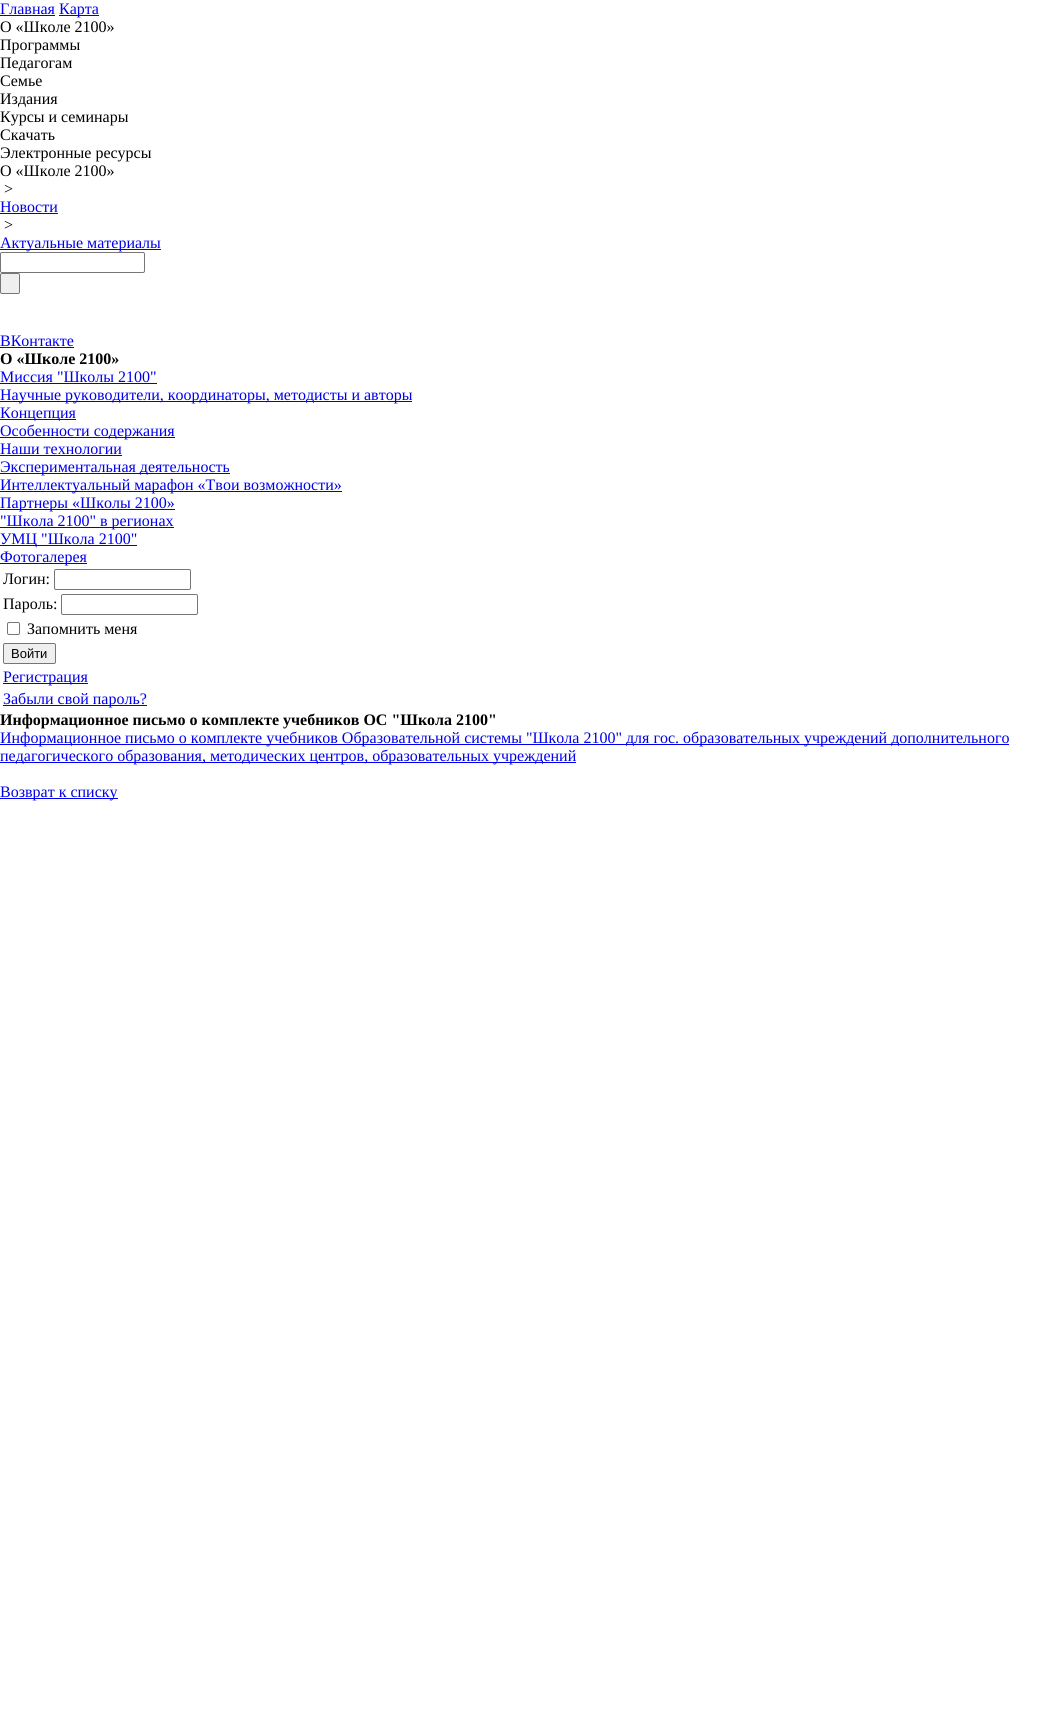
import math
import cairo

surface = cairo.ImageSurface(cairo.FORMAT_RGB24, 1041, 1718)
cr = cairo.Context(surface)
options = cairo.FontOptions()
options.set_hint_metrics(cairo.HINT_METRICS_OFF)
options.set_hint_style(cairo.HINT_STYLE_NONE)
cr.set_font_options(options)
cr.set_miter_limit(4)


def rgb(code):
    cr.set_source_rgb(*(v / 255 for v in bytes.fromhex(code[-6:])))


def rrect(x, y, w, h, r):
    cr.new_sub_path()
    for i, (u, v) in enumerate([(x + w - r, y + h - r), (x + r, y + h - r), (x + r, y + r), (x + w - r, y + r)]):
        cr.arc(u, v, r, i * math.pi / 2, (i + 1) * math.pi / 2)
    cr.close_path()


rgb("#ffffff")
cr.paint()
for x, y, w, h, color in [
    (0, 15, 55, 1, "#0000ee"),
    (59, 15, 40, 1, "#0000ee"),
    (0, 213, 58, 1, "#0000ee"),
    (0, 249, 161, 1, "#0000ee"),
]:
    rgb(color)
    cr.rectangle(x, y, w, h)
    cr.fill()
rrect(0.5, 252.5, 144, 20, 1.5)
rgb("#767676")
cr.set_line_width(1)
cr.stroke()
rgb("#efefef")
rrect(0.5, 273.5, 19, 20, 1.5)
cr.fill_preserve()
rgb("#767676")
cr.stroke()
for x, y, w, h, color in [
    (0, 347, 74, 1, "#0000ee"),
    (0, 383, 157, 1, "#0000ee"),
    (0, 401, 412, 1, "#0000ee"),
    (0, 419, 76, 1, "#0000ee"),
    (0, 437, 175, 1, "#0000ee"),
    (0, 455, 122, 1, "#0000ee"),
    (0, 473, 230, 1, "#0000ee"),
    (0, 491, 342, 1, "#0000ee"),
    (0, 509, 175, 1, "#0000ee"),
    (0, 527, 174, 1, "#0000ee"),
    (0, 545, 137, 1, "#0000ee"),
    (0, 563, 87, 1, "#0000ee"),
]:
    rgb(color)
    cr.rectangle(x, y, w, h)
    cr.fill()
rrect(54.5, 569.5, 136, 20, 1.5)
rgb("#767676")
cr.stroke()
rrect(61.5, 594.5, 136, 20, 1.5)
cr.stroke()
rrect(7.5, 622.5, 12, 12, 1.5)
cr.stroke()
rgb("#efefef")
rrect(3.5, 643.5, 52, 20, 1.5)
cr.fill_preserve()
rgb("#767676")
cr.stroke()
for x, y, w, h, color in [
    (3, 683, 85, 1, "#0000ee"),
    (3, 705, 144, 1, "#0000ee"),
    (0, 744, 1009, 1, "#0000ee"),
    (0, 762, 576, 1, "#0000ee"),
    (0, 798, 118, 1, "#0000ee"),
]:
    rgb(color)
    cr.rectangle(x, y, w, h)
    cr.fill()
cr.select_font_face("Liberation Serif")
cr.set_font_size(16)
cr.move_to(0, 14)
cr.show_text("Главная")
cr.move_to(59, 14)
cr.show_text("Карта")
rgb("#000000")
for x, y, s in [
    (0, 32, "О «Школе 2100»"),
    (0, 50, "Программы"),
    (0, 68, "Педагогам"),
    (0, 86, "Семье"),
    (0, 104, "Издания"),
    (0, 122, "Курсы и семинары"),
    (0, 140, "Скачать"),
    (0, 158, "Электронные ресурсы"),
    (0, 176, "О «Школе 2100»"),
    (4, 194, ">"),
]:
    cr.move_to(x, y)
    cr.show_text(s)
rgb("#0000ee")
cr.move_to(0, 212)
cr.show_text("Новости")
rgb("#000000")
cr.move_to(4, 230)
cr.show_text(">")
rgb("#0000ee")
cr.move_to(0, 248)
cr.show_text("Актуальные материалы")
cr.move_to(0, 346)
cr.show_text("ВКонтакте")
cr.select_font_face("Liberation Serif", cairo.FONT_SLANT_NORMAL, cairo.FONT_WEIGHT_BOLD)
rgb("#000000")
cr.move_to(0, 364)
cr.show_text("О «Школе 2100»")
cr.select_font_face("Liberation Serif")
rgb("#0000ee")
for x, y, s in [
    (0, 382, "Миссия \"Школы 2100\""),
    (0, 400, "Научные руководители, координаторы, методисты и авторы"),
    (0, 418, "Концепция"),
    (0, 436, "Особенности содержания"),
    (0, 454, "Наши технологии"),
    (0, 472, "Экспериментальная деятельность"),
    (0, 490, "Интеллектуальный марафон «Твои возможности»"),
    (0, 508, "Партнеры «Школы 2100»"),
    (0, 526, "\"Школа 2100\" в регионах"),
    (0, 544, "УМЦ \"Школа 2100\""),
    (0, 562, "Фотогалерея"),
]:
    cr.move_to(x, y)
    cr.show_text(s)
rgb("#000000")
for x, y, s in [
    (3, 584, "Логин:"),
    (3, 609, "Пароль:"),
    (27, 634, "Запомнить меня"),
]:
    cr.move_to(x, y)
    cr.show_text(s)
cr.select_font_face("Liberation Sans")
cr.set_font_size(13)
cr.move_to(11, 658)
cr.show_text("Войти")
cr.select_font_face("Liberation Serif")
cr.set_font_size(16)
rgb("#0000ee")
cr.move_to(3, 682)
cr.show_text("Регистрация")
cr.move_to(3, 704)
cr.show_text("Забыли свой пароль?")
cr.select_font_face("Liberation Serif", cairo.FONT_SLANT_NORMAL, cairo.FONT_WEIGHT_BOLD)
rgb("#000000")
cr.move_to(0, 725)
cr.show_text("Информационное письмо о комплекте учебников ОС \"Школа 2100\"")
cr.select_font_face("Liberation Serif")
rgb("#0000ee")
for x, y, s in [
    (0, 743, "Информационное письмо о комплекте учебников Образовательной системы \"Школа 2100\" для гос. образовательных учреждений дополнительного"),
    (0, 761, "педагогического образования, методических центров, образовательных учреждений"),
    (0, 797, "Возврат к списку"),
]:
    cr.move_to(x, y)
    cr.show_text(s)
surface.write_to_png("page.png")
